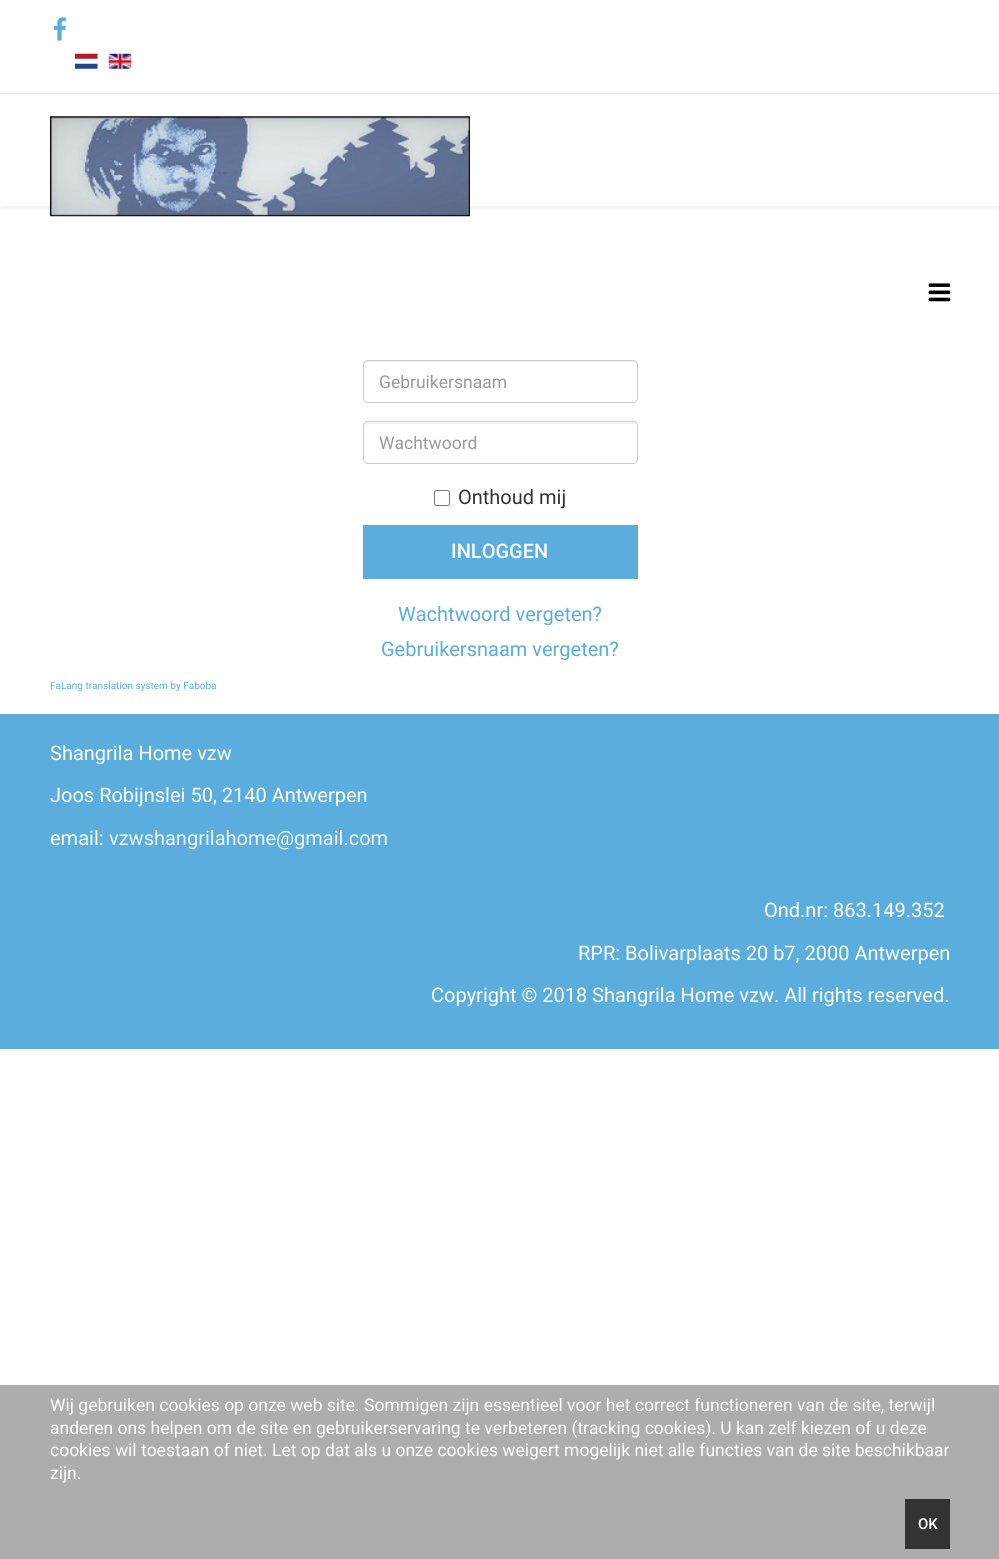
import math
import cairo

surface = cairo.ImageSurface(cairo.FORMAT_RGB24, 999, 1559)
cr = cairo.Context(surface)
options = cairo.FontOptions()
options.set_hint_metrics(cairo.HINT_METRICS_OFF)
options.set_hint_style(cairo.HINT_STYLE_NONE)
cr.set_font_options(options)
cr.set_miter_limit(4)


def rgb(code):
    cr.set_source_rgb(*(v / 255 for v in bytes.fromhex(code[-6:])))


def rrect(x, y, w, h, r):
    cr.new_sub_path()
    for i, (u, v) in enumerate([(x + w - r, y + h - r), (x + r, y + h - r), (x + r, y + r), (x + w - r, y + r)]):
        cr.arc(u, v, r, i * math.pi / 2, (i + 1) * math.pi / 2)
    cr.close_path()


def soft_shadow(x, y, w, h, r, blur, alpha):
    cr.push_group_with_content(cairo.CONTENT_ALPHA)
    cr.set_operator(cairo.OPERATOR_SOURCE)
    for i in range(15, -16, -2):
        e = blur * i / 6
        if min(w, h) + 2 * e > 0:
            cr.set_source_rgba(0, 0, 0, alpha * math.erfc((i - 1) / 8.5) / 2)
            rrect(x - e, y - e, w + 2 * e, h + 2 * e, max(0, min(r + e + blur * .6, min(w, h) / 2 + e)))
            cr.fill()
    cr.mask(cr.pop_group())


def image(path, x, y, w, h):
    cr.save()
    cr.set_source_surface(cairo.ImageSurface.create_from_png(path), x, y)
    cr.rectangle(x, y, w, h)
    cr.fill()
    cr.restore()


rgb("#ffffff")
cr.paint()
rgb("#e7e7e7")
cr.rectangle(0, 93, 999, 1)
cr.fill()
image("img/1.png", 53, 17, 13, 24)
image("img/2.png", 75, 53, 23, 16)
image("img/3.png", 108, 53, 24, 16)
cr.save()
cr.rectangle(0, 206, 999, 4)
cr.clip()
rgb("#000000")
soft_shadow(0, 98, 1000, 112, 0, 2, 0.05)
cr.restore()
image("img/4.png", 50, 116, 420, 101)
image("img/5.png", 928, 283, 23, 19)
rgb("#ececec")
cr.new_path()
cr.move_to(368, 362)
cr.line_to(632, 362)
cr.curve_to(635, 362, 636, 364, 636, 366)
cr.curve_to(636, 363, 635, 361, 632, 361)
cr.line_to(368, 361)
cr.curve_to(365, 361, 364, 363, 364, 366)
cr.curve_to(364, 364, 365, 362, 368, 362)
cr.close_path()
cr.fill()
rrect(363.5, 360.5, 274, 42, 4.5)
rgb("#cccccc")
cr.set_line_width(1)
cr.stroke()
rgb("#ececec")
cr.new_path()
cr.move_to(368, 424)
cr.line_to(632, 424)
cr.curve_to(635, 424, 636, 425, 636, 428)
cr.curve_to(636, 425, 635, 423, 632, 423)
cr.line_to(368, 423)
cr.curve_to(365, 423, 364, 425, 364, 428)
cr.curve_to(364, 425, 365, 424, 368, 424)
cr.close_path()
cr.fill()
rrect(363.5, 421.5, 274, 42, 4.5)
rgb("#cccccc")
cr.stroke()
rrect(434.5, 490.5, 15, 15, 2)
rgb("#767676")
cr.stroke()
for x, y, w, h, color in [
    (363, 525, 275, 54, "#5aaddd"),
    (0, 714, 999, 335, "#5aaddd"),
    (0, 1385, 999, 174, "#adadad"),
    (905, 1499, 45, 50, "#333333"),
]:
    rgb(color)
    cr.rectangle(x, y, w, h)
    cr.fill()
cr.select_font_face("Roboto")
cr.set_font_size(17.5)
rgb("#999999")
cr.move_to(379, 388)
cr.show_text("Gebruikersnaam")
cr.move_to(379, 449)
cr.show_text("Wachtwoord")
cr.set_font_size(20)
rgb("#333333")
cr.move_to(458, 504)
cr.show_text("Onthoud mij")
cr.select_font_face("Roboto Medium")
rgb("#ffffff")
cr.move_to(451, 558)
cr.show_text("INLOGGEN")
cr.select_font_face("Roboto")
rgb("#5aaddd")
cr.move_to(398, 621)
cr.show_text("Wachtwoord vergeten?")
cr.move_to(381, 656)
cr.show_text("Gebruikersnaam vergeten?")
cr.set_font_size(10)
cr.move_to(50, 689)
cr.show_text("FaLang translation system by Faboba")
cr.set_font_size(20)
rgb("#ffffff")
for x, y, s in [
    (50, 760, "Shangrila Home vzw"),
    (50, 802, "Joos Robijnslei 50, 2140 Antwerpen"),
    (50, 845, "email:"),
]:
    cr.move_to(x, y)
    cr.show_text(s)
rgb("#eff7fc")
cr.move_to(109, 845)
cr.show_text("vzwshangrilahome@gmail.com")
rgb("#ffffff")
for x, y, s in [
    (764, 917, "Ond.nr: 863.149.352"),
    (578, 960, "RPR: Bolivarplaats 20 b7, 2000 Antwerpen"),
    (431, 1002, "Copyright © 2018 Shangrila Home vzw. All rights reserved."),
]:
    cr.move_to(x, y)
    cr.show_text(s)
cr.set_font_size(17.5)
for x, y, s in [
    (50, 1411, "Wij gebruiken cookies op onze web site. Sommigen zijn essentieel voor het correct functioneren van de site, terwijl"),
    (50, 1434, "anderen ons helpen om de site en gebruikerservaring te verbeteren (tracking cookies). U kan zelf kiezen of u deze"),
    (50, 1456, "cookies wil toestaan of niet. Let op dat als u onze cookies weigert mogelijk niet alle functies van de site beschikbaar"),
    (50, 1479, "zijn."),
]:
    cr.move_to(x, y)
    cr.show_text(s)
cr.select_font_face("Roboto Medium")
cr.set_font_size(15)
cr.move_to(918, 1529)
cr.show_text("OK")
surface.write_to_png("page.png")
